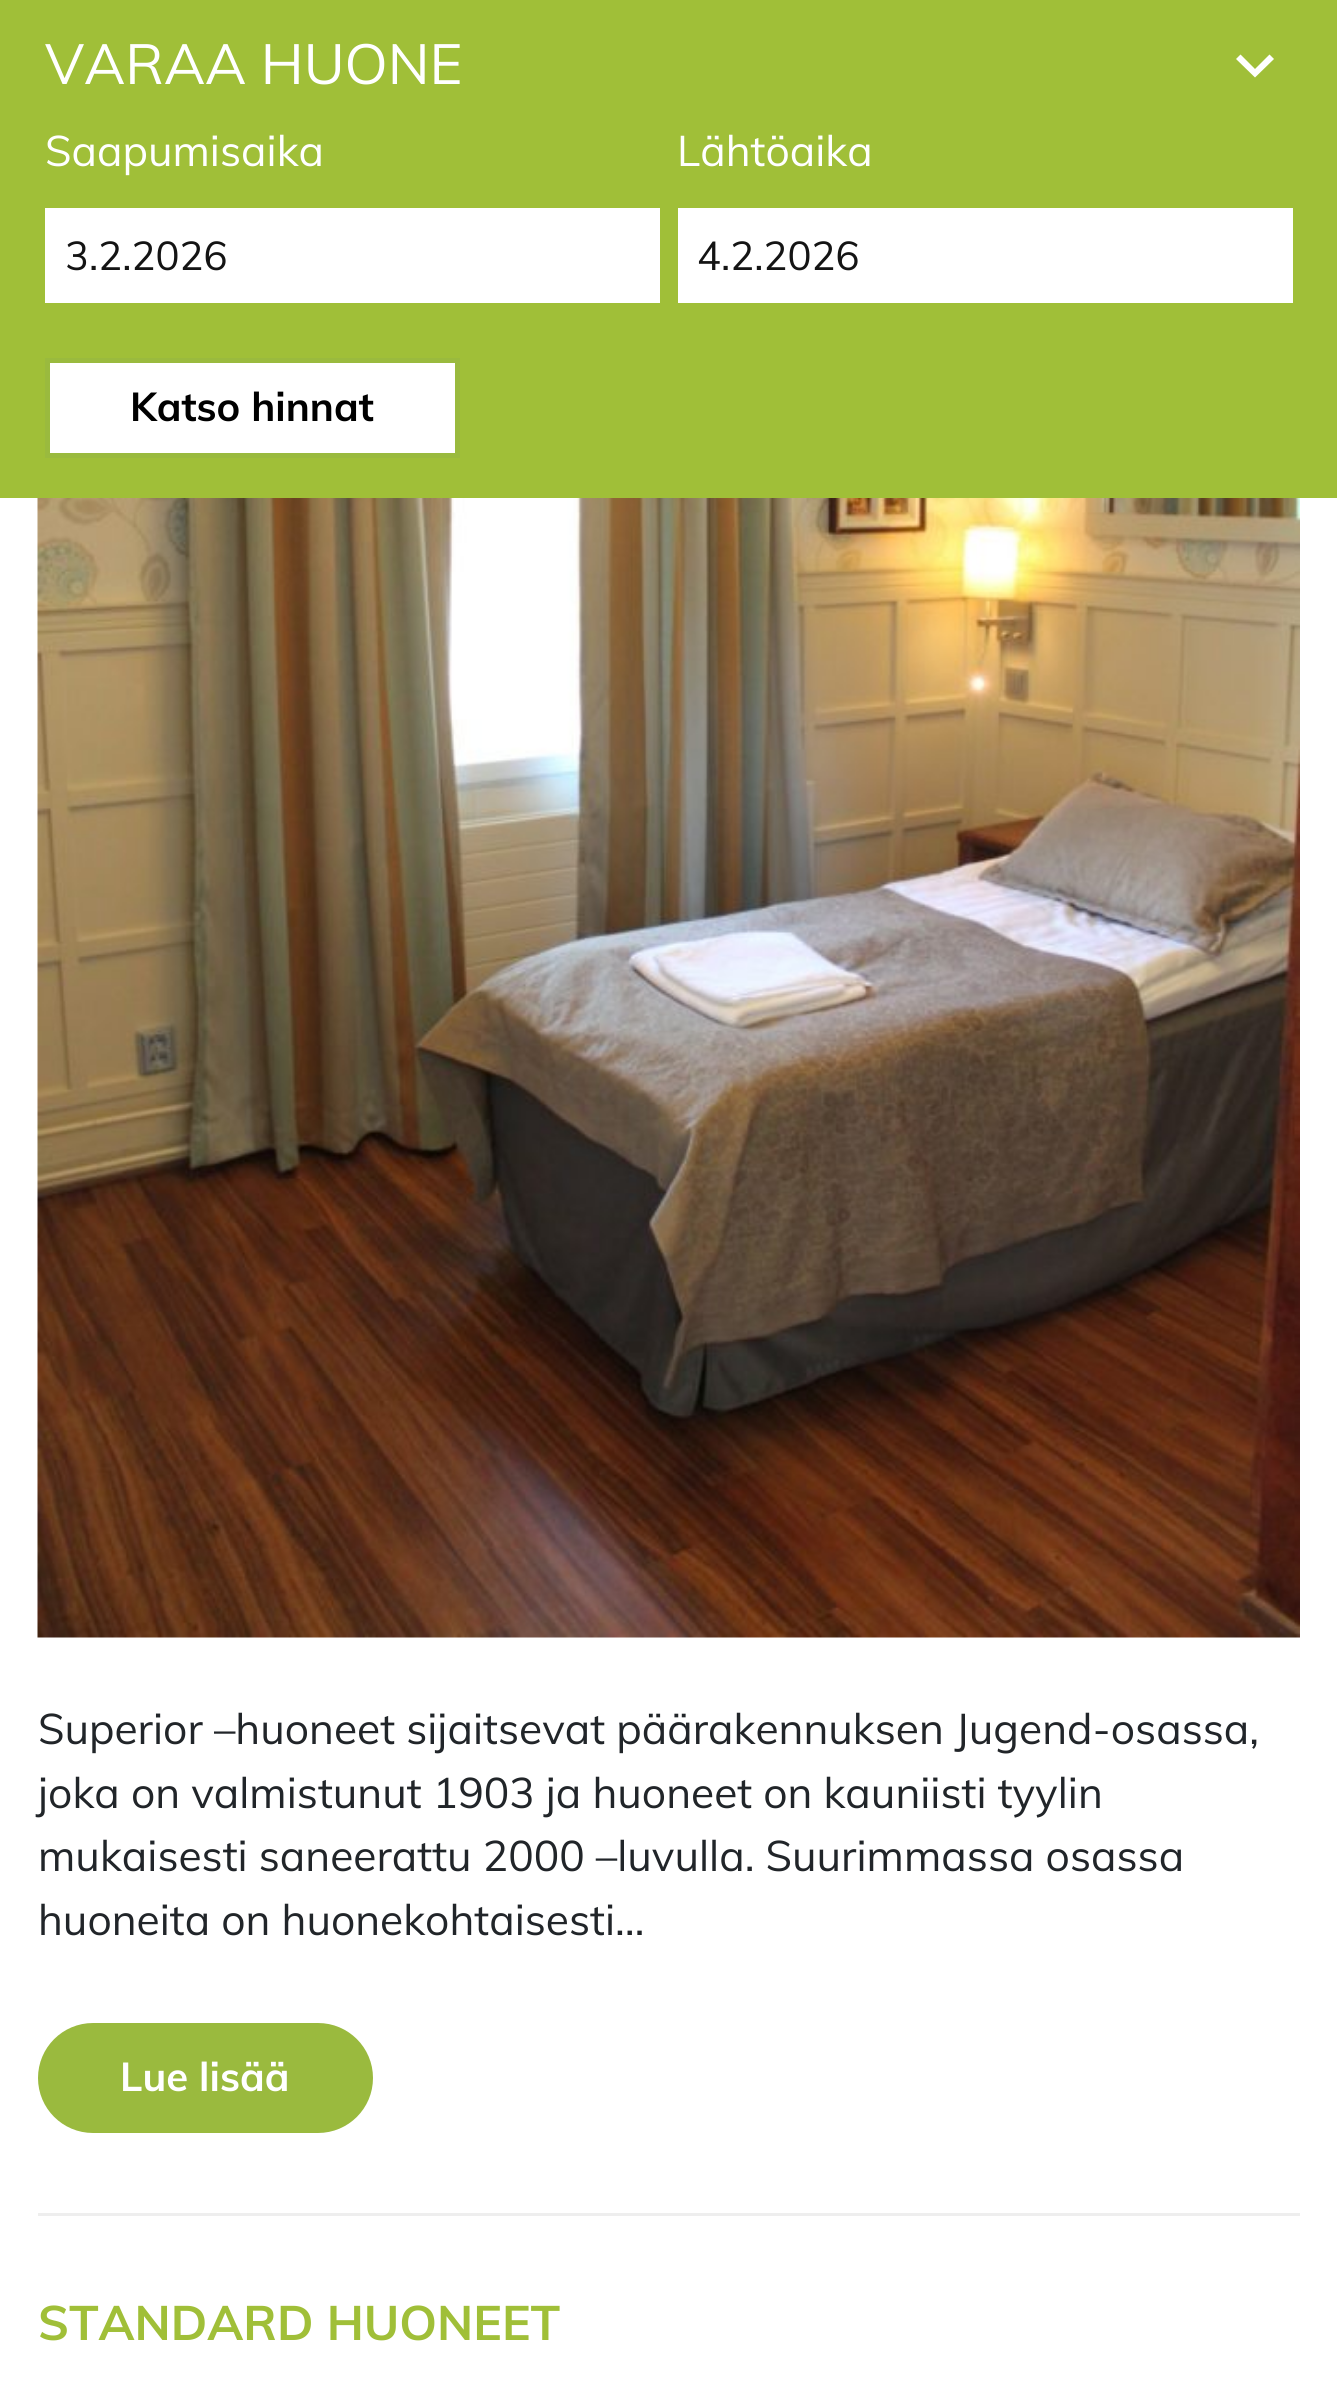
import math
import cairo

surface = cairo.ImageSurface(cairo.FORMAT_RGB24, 1337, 2405)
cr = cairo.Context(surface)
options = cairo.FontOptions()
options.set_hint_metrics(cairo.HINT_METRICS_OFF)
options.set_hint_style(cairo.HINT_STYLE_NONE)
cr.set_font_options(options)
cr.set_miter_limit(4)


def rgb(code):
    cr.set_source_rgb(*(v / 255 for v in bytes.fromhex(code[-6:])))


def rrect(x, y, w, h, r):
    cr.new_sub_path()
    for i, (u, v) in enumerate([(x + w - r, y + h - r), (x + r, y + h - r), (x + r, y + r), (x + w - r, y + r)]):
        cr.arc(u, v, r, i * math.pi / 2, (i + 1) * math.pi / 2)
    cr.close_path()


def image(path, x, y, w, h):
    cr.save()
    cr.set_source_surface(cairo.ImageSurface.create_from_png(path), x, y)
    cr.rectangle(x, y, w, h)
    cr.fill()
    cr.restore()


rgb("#ffffff")
cr.paint()
rgb("#a0bf38")
cr.rectangle(0, 0, 1337, 498)
cr.fill()
rgb("#ffffff")
cr.new_path()
cr.move_to(1240.5, 54.5)
cr.line_to(1255, 69)
cr.line_to(1269.5, 54.5)
cr.line_to(1274, 59)
cr.line_to(1255, 77.5)
cr.line_to(1236, 59)
cr.close_path()
cr.fill()
cr.rectangle(45, 208, 615, 95)
cr.fill()
cr.rectangle(678, 208, 615, 95)
cr.fill()
cr.rectangle(47.5, 360.5, 410, 95)
cr.fill_preserve()
rgb("#9aba3e")
cr.set_line_width(5)
cr.stroke()
rgb("#eeeeee")
cr.rectangle(38, 2213, 1262, 3)
cr.fill()
image("img/1.png", 37, 498, 1263, 1140)
rgb("#9aba3e")
rrect(38, 2023, 335, 110, 55)
cr.fill()
cr.select_font_face("Muli")
cr.set_font_size(56)
rgb("#ffffff")
cr.move_to(45, 84)
cr.show_text("VARAA HUONE")
cr.set_font_size(42.5)
cr.move_to(45, 166)
cr.show_text("Saapumisaika")
cr.set_font_size(40)
rgb("#141414")
cr.move_to(65, 270)
cr.show_text("3.2.2026")
cr.set_font_size(42.5)
rgb("#ffffff")
cr.move_to(677, 166)
cr.show_text("Lähtöaika")
cr.set_font_size(40)
rgb("#141414")
cr.move_to(697, 270)
cr.show_text("4.2.2026")
cr.select_font_face("Muli", cairo.FONT_SLANT_NORMAL, cairo.FONT_WEIGHT_BOLD)
rgb("#000000")
cr.move_to(130, 421)
cr.show_text("Katso hinnat")
cr.select_font_face("Muli")
cr.set_font_size(42.5)
rgb("#212529")
for x, y, s in [
    (38, 1744, "Superior –huoneet sijaitsevat päärakennuksen Jugend-osassa,"),
    (38, 1808, "joka on valmistunut 1903 ja huoneet on kauniisti tyylin"),
    (38, 1871, "mukaisesti saneerattu 2000 –luvulla. Suurimmassa osassa"),
    (38, 1935, "huoneita on huonekohtaisesti…"),
]:
    cr.move_to(x, y)
    cr.show_text(s)
cr.select_font_face("Muli", cairo.FONT_SLANT_NORMAL, cairo.FONT_WEIGHT_BOLD)
cr.set_font_size(40)
rgb("#ffffff")
cr.move_to(120, 2091)
cr.show_text("Lue lisää")
cr.set_font_size(48)
rgb("#a0bf38")
cr.move_to(38, 2340)
cr.show_text("STANDARD HUONEET")
surface.write_to_png("page.png")
